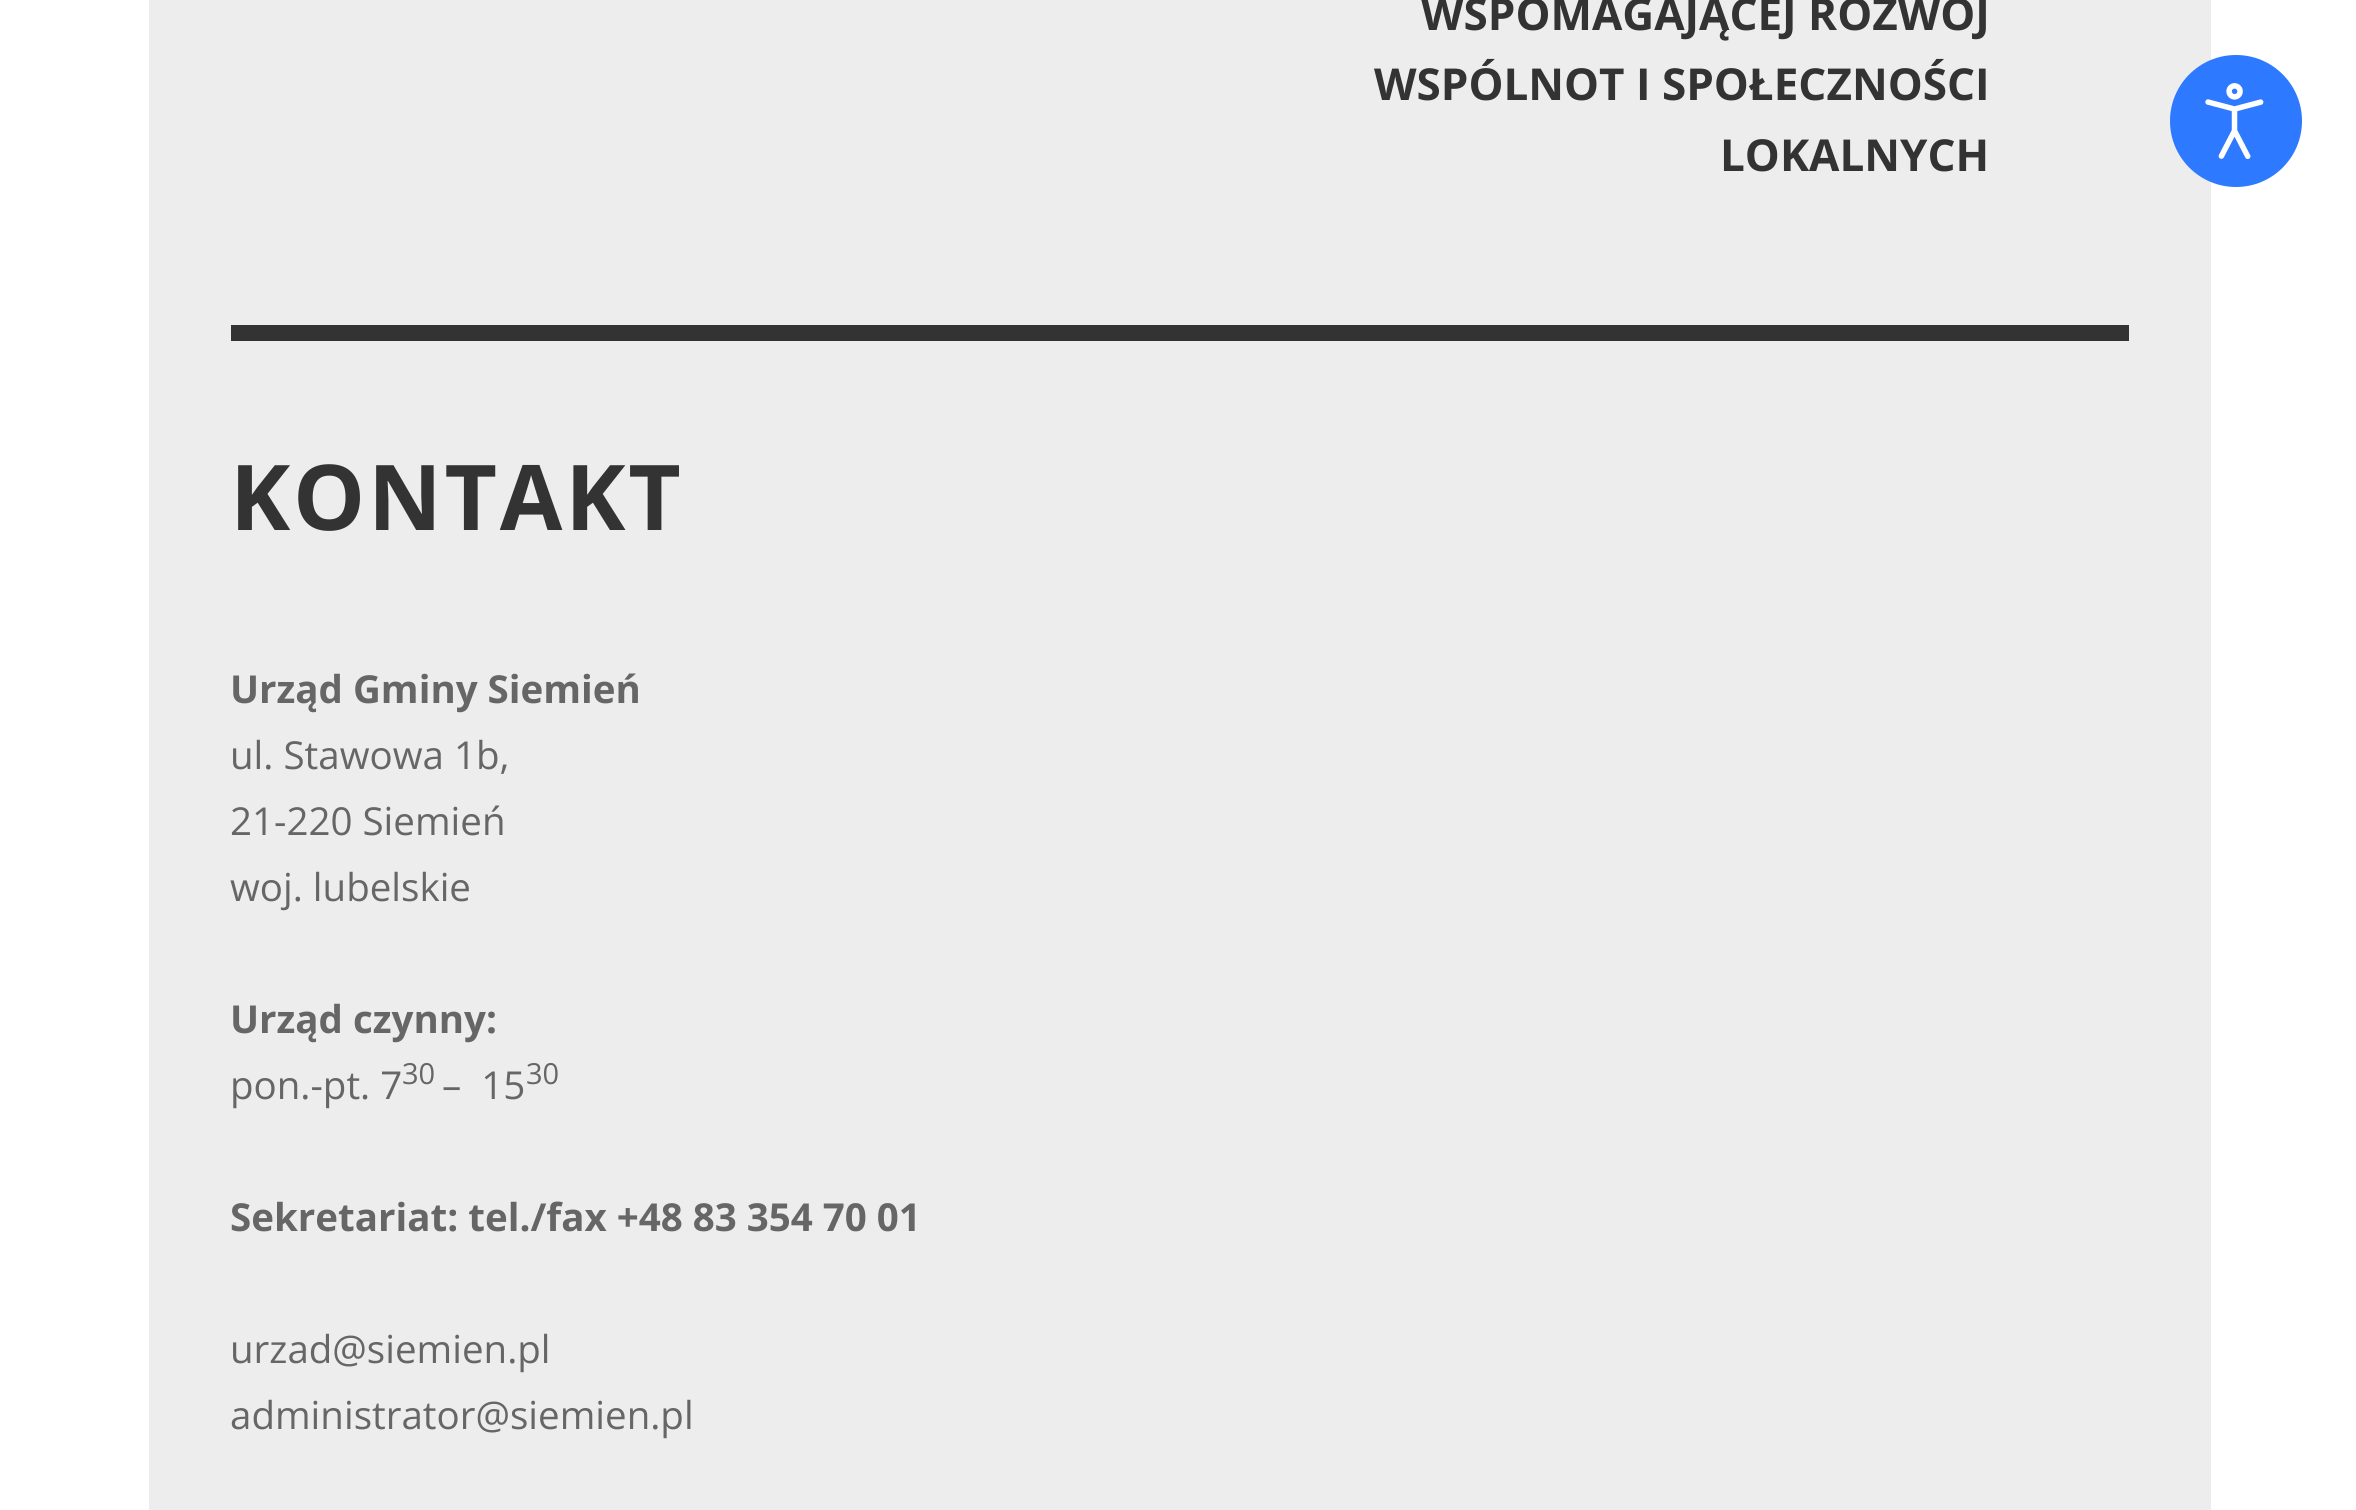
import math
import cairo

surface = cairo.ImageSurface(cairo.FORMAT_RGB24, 2356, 1510)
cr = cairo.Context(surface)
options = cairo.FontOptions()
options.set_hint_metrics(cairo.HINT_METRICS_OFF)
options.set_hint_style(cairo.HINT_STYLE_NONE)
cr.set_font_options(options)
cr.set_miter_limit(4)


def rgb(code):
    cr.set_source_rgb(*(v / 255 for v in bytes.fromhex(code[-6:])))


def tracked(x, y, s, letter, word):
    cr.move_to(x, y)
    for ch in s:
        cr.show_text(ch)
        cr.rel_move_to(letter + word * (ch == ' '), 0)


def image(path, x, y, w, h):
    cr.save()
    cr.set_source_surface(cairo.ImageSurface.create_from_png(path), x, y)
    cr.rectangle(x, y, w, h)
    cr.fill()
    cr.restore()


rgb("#ffffff")
cr.paint()
rgb("#ededed")
cr.rectangle(149, 0, 2062, 1510)
cr.fill()
rgb("#333333")
cr.rectangle(231, 325, 1898, 16)
cr.fill()
rgb("#2d79ff")
cr.arc(2236, 121, 66, 0, 2 * math.pi)
cr.fill()
image("img/1.png", 2205, 83, 59, 76)
cr.select_font_face("Open Sans", cairo.FONT_SLANT_NORMAL, cairo.FONT_WEIGHT_BOLD)
cr.set_font_size(44)
rgb("#333333")
for x, y, s in [
    (1421, 30, "WSPOMAGAJĄCEJ ROZWÓJ"),
    (1374, 100, "WSPÓLNOT I SPOŁECZNOŚCI"),
    (1720, 171, "LOKALNYCH"),
]:
    cr.move_to(x, y)
    cr.show_text(s)
cr.set_font_size(90.75)
tracked(230, 530, "KONTAKT", 2.75, 0)
cr.set_font_size(38.5)
rgb("#666666")
cr.move_to(230, 703)
cr.show_text("Urząd Gminy Siemień")
cr.select_font_face("Open Sans")
for x, y, s in [
    (230, 769, "ul. Stawowa 1b,"),
    (230, 835, "21-220 Siemień"),
    (230, 901, "woj. lubelskie"),
]:
    cr.move_to(x, y)
    cr.show_text(s)
cr.select_font_face("Open Sans", cairo.FONT_SLANT_NORMAL, cairo.FONT_WEIGHT_BOLD)
cr.move_to(230, 1033)
cr.show_text("Urząd czynny:")
cr.select_font_face("Open Sans")
cr.move_to(230, 1099)
cr.show_text("pon.-pt. 7")
cr.set_font_size(29)
cr.move_to(402, 1084)
cr.show_text("30")
cr.set_font_size(38.5)
cr.move_to(442, 1099)
cr.show_text("–  15")
cr.set_font_size(29)
cr.move_to(526, 1084)
cr.show_text("30")
cr.select_font_face("Open Sans", cairo.FONT_SLANT_NORMAL, cairo.FONT_WEIGHT_BOLD)
cr.set_font_size(38.5)
cr.move_to(230, 1231)
cr.show_text("Sekretariat: tel./fax +48 83 354 70 01")
cr.select_font_face("Open Sans")
cr.move_to(230, 1363)
cr.show_text("urzad@siemien.pl")
cr.move_to(230, 1429)
cr.show_text("administrator@siemien.pl")
surface.write_to_png("page.png")
